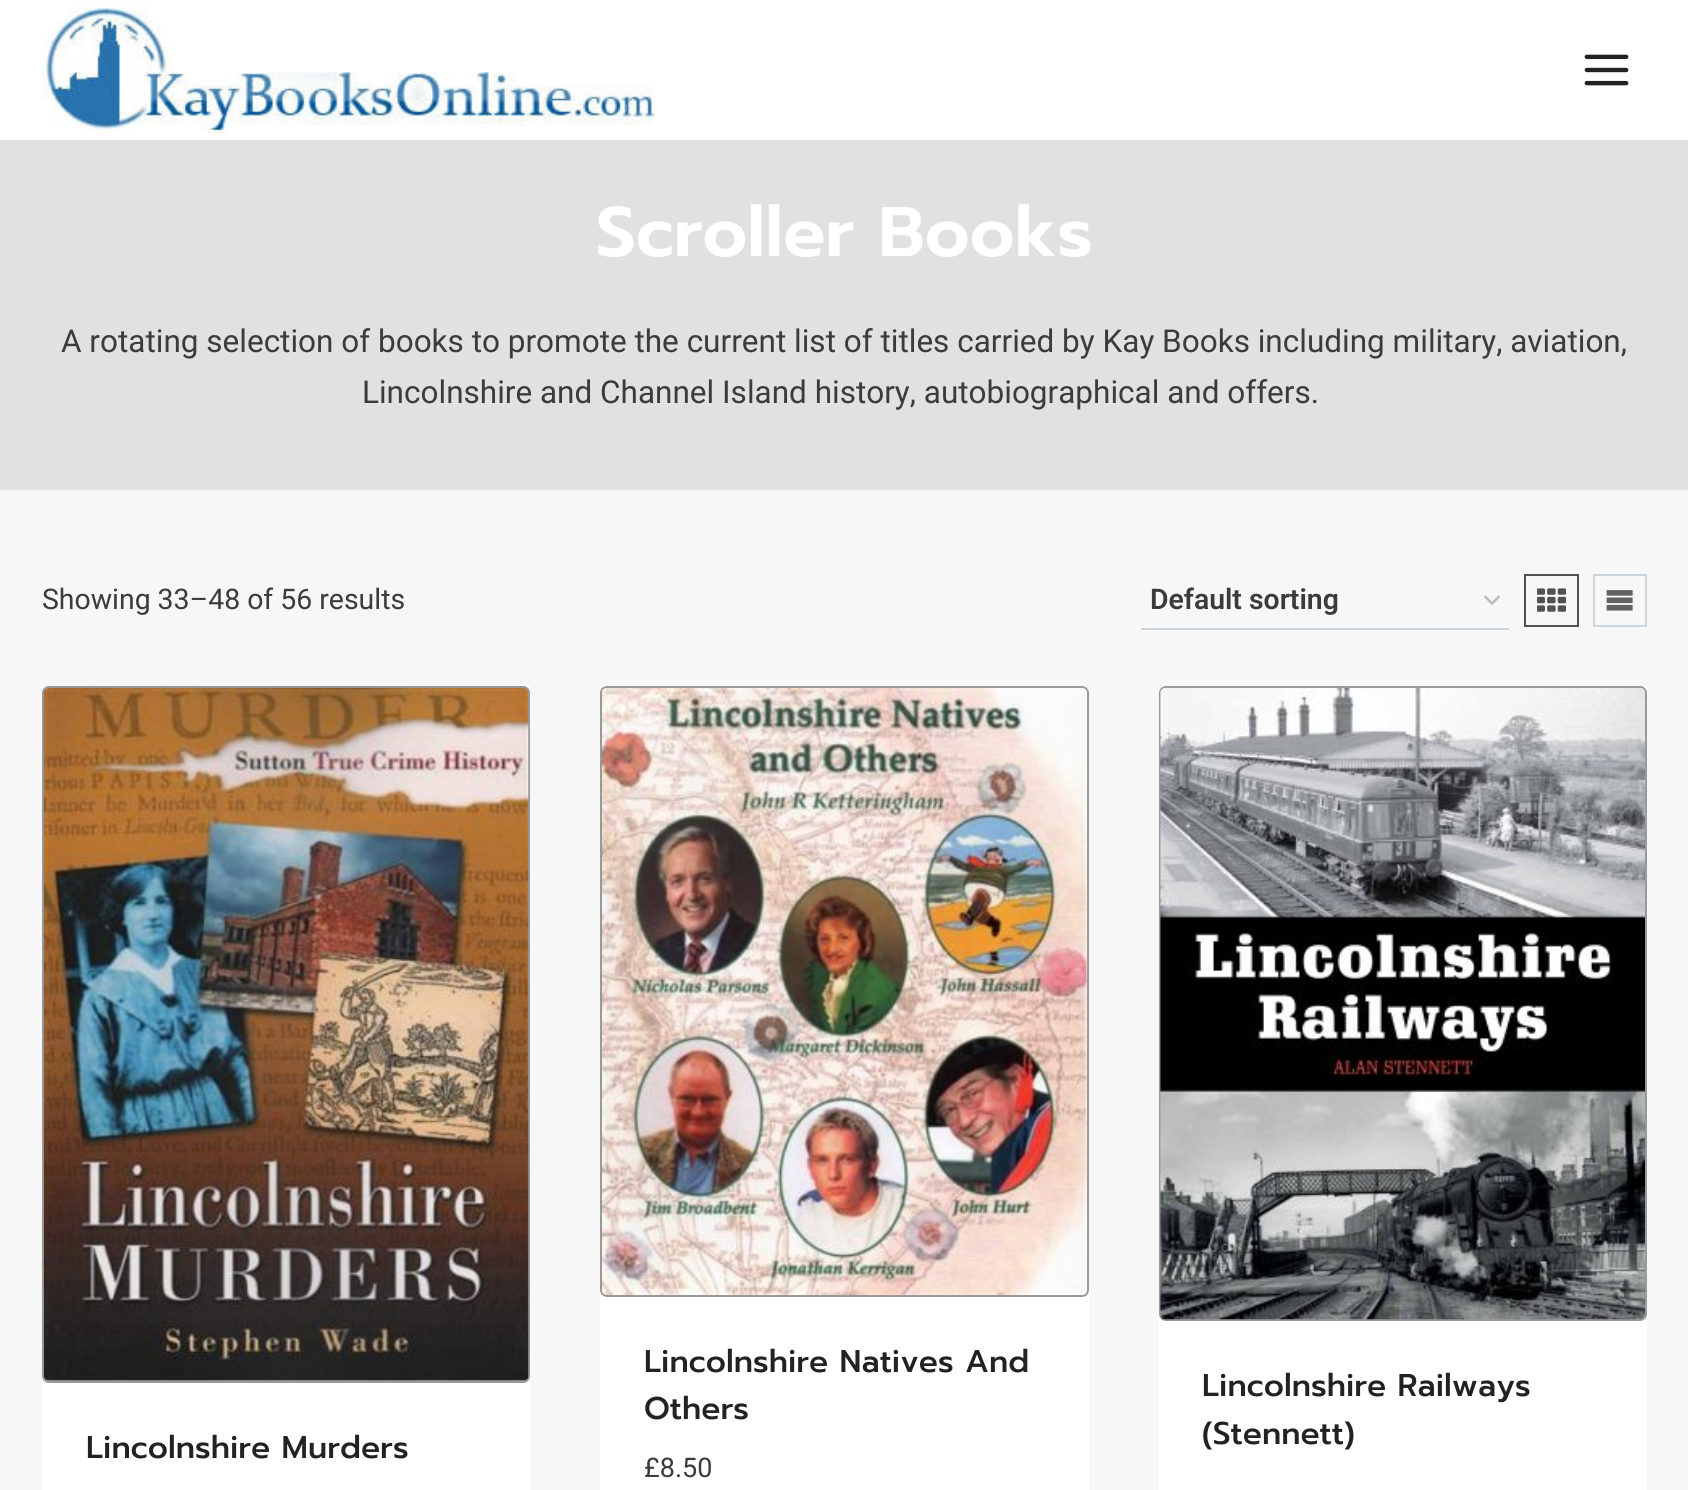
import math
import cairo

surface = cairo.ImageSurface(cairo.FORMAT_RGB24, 1688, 1490)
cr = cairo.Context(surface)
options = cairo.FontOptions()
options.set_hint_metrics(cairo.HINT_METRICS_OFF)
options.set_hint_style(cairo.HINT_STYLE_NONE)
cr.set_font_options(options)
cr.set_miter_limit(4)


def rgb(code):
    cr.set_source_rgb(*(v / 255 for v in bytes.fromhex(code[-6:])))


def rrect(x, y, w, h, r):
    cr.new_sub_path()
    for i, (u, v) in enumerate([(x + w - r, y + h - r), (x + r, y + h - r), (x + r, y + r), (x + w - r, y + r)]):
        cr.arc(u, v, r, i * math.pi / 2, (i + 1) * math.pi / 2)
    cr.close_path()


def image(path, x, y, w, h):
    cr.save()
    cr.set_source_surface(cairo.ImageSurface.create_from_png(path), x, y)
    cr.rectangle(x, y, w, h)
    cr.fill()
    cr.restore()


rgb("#f7f7f7")
cr.paint()
rgb("#ffffff")
cr.rectangle(0, 0, 1688, 140)
cr.fill()
image("img/1.png", 42, 7, 613, 126)
image("img/2.png", 1584, 54, 45, 32)
rgb("#e1e1e1")
cr.rectangle(0, 140, 1688, 350)
cr.fill()
cr.new_path()
cr.move_to(1484.5, 596)
cr.line_to(1492, 603.5)
cr.line_to(1499.5, 596)
rgb("#bbbbbb")
cr.set_line_width(2.5)
cr.stroke()
rgb("#cbd5e0")
cr.rectangle(1141, 628, 368, 2)
cr.fill()
cr.rectangle(1525, 575, 53, 51)
rgb("#515151")
cr.set_line_width(2)
cr.stroke()
image("img/3.png", 1537, 588, 29, 24)
cr.rectangle(1594, 575, 52, 51)
rgb("#cbd5e0")
cr.stroke()
image("img/4.png", 1606, 590, 27, 21)
rgb("#ffffff")
cr.rectangle(42, 686, 488, 804)
cr.fill()
rrect(43, 687, 486, 695, 6)
rgb("#999999")
cr.stroke()
image("img/5.png", 43, 687, 486, 694)
rgb("#ffffff")
cr.rectangle(600, 686, 489, 804)
cr.fill()
rrect(601, 687, 487, 609, 6)
rgb("#999999")
cr.stroke()
image("img/6.png", 602, 687, 485, 608)
rgb("#ffffff")
cr.rectangle(1159, 686, 488, 804)
cr.fill()
rrect(1160, 687, 486, 633, 6)
rgb("#999999")
cr.stroke()
image("img/7.png", 1160, 687, 485, 633)
cr.select_font_face("Prompt SemiBold")
cr.set_font_size(70)
rgb("#ffffff")
cr.move_to(596, 256)
cr.show_text("Scroller Books")
cr.select_font_face("Roboto")
cr.set_font_size(31.5)
rgb("#3b3b3b")
cr.move_to(61, 352)
cr.show_text("A rotating selection of books to promote the current list of titles carried by Kay Books including military, aviation,")
cr.move_to(362, 403)
cr.show_text("Lincolnshire and Channel Island history, autobiographical and offers.")
cr.set_font_size(28.4)
cr.move_to(42, 609)
cr.show_text("Showing 33–48 of 56 results")
cr.select_font_face("Roboto SemiBold")
cr.move_to(1150, 609)
cr.show_text("Default sorting")
cr.select_font_face("Prompt Medium")
cr.set_font_size(31.5)
rgb("#222222")
for x, y, s in [
    (86, 1458, "Lincolnshire Murders"),
    (644, 1372, "Lincolnshire Natives And"),
    (644, 1419, "Others"),
]:
    cr.move_to(x, y)
    cr.show_text(s)
cr.select_font_face("Roboto")
cr.set_font_size(27)
rgb("#3b3b3b")
cr.move_to(644, 1477)
cr.show_text("£8.50")
cr.select_font_face("Prompt Medium")
cr.set_font_size(31.5)
rgb("#222222")
cr.move_to(1202, 1396)
cr.show_text("Lincolnshire Railways")
cr.move_to(1202, 1444)
cr.show_text("(Stennett)")
surface.write_to_png("page.png")
